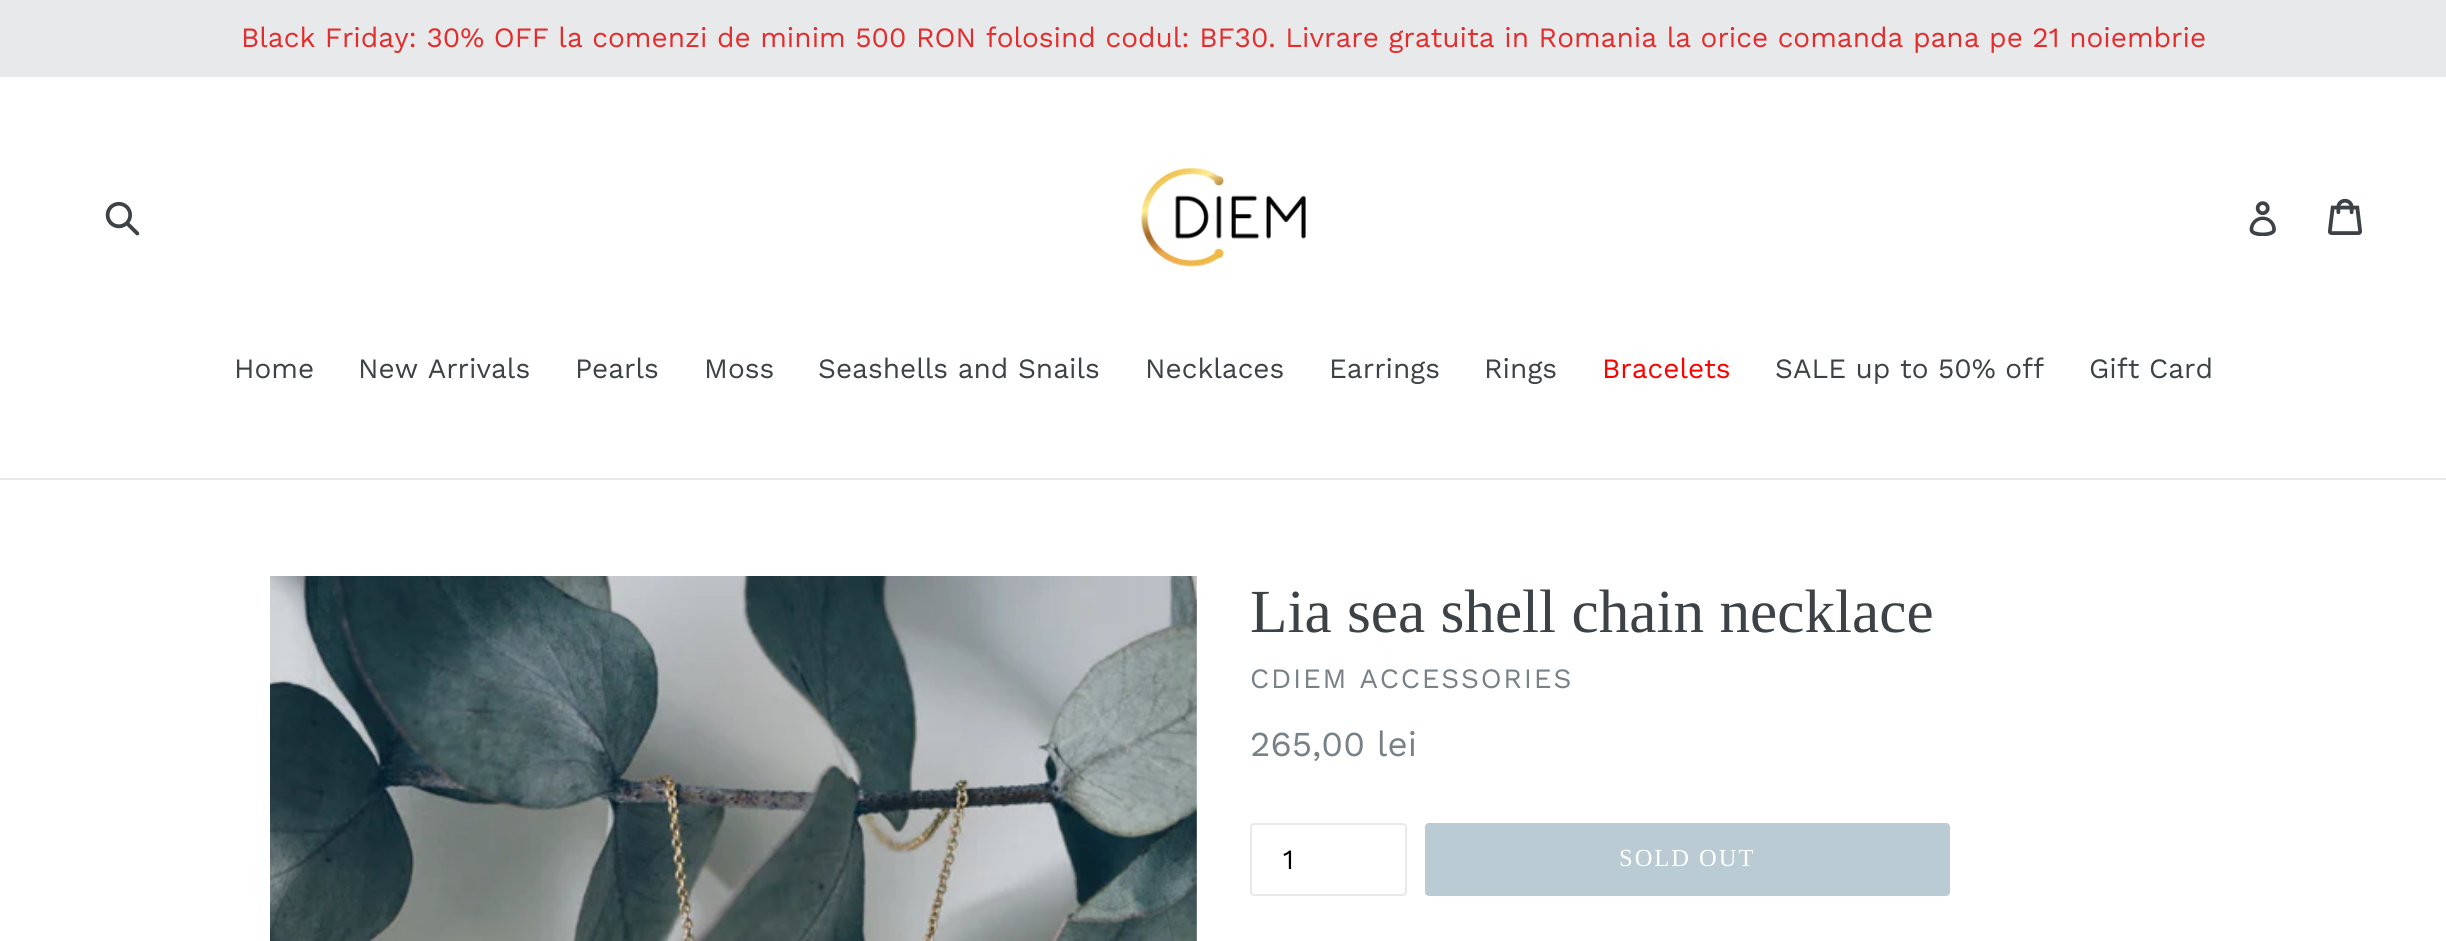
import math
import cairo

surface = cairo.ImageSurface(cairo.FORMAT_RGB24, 2446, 941)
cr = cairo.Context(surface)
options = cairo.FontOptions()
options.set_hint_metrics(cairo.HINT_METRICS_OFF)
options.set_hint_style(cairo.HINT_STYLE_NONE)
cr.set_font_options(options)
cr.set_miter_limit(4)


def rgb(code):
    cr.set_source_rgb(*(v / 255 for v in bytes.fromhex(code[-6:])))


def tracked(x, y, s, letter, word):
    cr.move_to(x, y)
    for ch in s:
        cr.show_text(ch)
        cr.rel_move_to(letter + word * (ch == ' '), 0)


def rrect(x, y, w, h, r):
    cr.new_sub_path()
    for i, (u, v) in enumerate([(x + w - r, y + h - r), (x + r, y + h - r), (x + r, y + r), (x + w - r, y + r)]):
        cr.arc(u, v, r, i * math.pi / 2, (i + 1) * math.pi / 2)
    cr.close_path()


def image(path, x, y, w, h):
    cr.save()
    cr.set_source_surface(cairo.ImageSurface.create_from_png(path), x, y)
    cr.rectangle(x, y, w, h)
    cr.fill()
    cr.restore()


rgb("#ffffff")
cr.paint()
rgb("#e8e9eb")
cr.rectangle(0, 0, 2446, 77)
cr.fill()
image("img/1.png", 105, 201, 35, 35)
image("img/2.png", 1140, 167, 166, 100)
image("img/3.png", 2249, 201, 27, 35)
image("img/4.png", 2328, 198, 34, 37)
cr.rectangle(0, 478, 2446, 2)
cr.fill()
image("img/5.png", 270, 576, 927, 365)
rrect(1251, 824, 155, 71, 3)
cr.stroke()
rgb("#bbcbd4")
rrect(1425, 823, 525, 73, 4)
cr.fill()
cr.select_font_face("Work Sans")
cr.set_font_size(28)
rgb("#e32c2b")
cr.move_to(241, 47)
cr.show_text("Black Friday: 30% OFF la comenzi de minim 500 RON folosind codul: BF30. Livrare gratuita in Romania la orice comanda pana pe 21 noiembrie")
rgb("#3d4246")
for x, y, s in [
    (234, 378, "Home"),
    (358, 378, "New Arrivals"),
    (575, 378, "Pearls"),
    (704, 378, "Moss"),
    (818, 378, "Seashells and Snails"),
    (1145, 378, "Necklaces"),
    (1329, 378, "Earrings"),
    (1484, 378, "Rings"),
]:
    cr.move_to(x, y)
    cr.show_text(s)
rgb("#ff0000")
cr.move_to(1602, 378)
cr.show_text("Bracelets")
rgb("#3d4246")
cr.move_to(1775, 378)
cr.show_text("SALE up to 50% off")
cr.move_to(2089, 378)
cr.show_text("Gift Card")
cr.select_font_face("Liberation Serif")
cr.set_font_size(61.25)
cr.move_to(1250, 632)
cr.show_text("Lia sea shell chain necklace")
cr.select_font_face("Work Sans")
cr.set_font_size(28)
rgb("#788188")
tracked(1250, 688, "CDIEM ACCESSORIES", 1.75, 0)
cr.set_font_size(35)
cr.move_to(1250, 756)
cr.show_text("265,00 lei")
cr.set_font_size(28)
rgb("#000000")
cr.move_to(1283, 869)
cr.show_text("1")
cr.select_font_face("Liberation Serif")
cr.set_font_size(24.5)
rgb("#ffffff")
tracked(1619, 866, "SOLD OUT", 2, 0)
surface.write_to_png("page.png")
